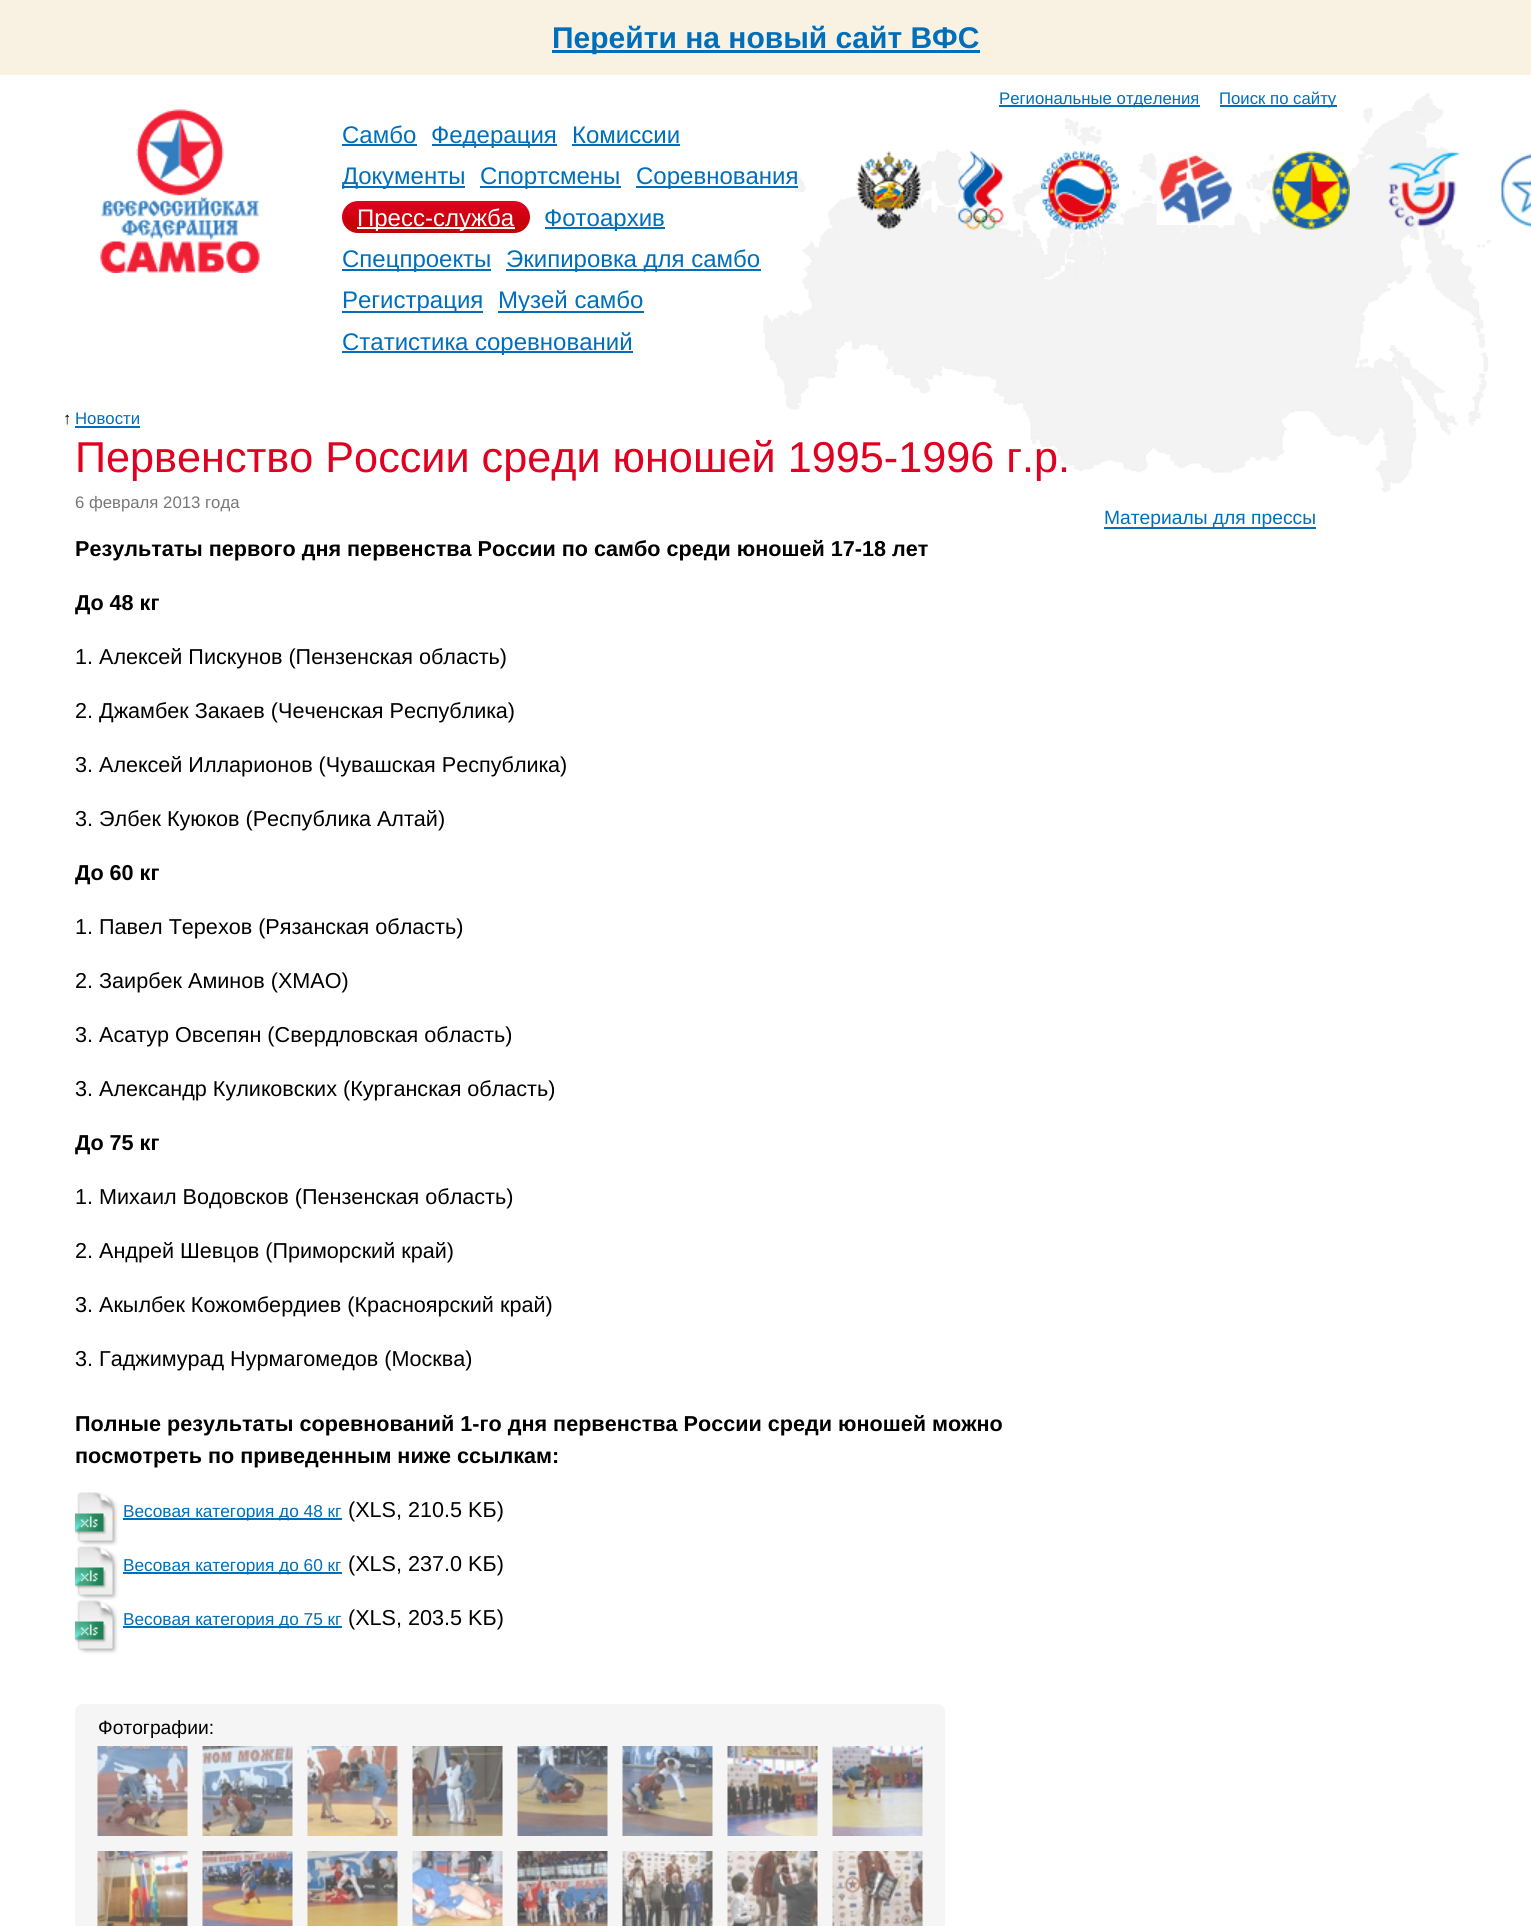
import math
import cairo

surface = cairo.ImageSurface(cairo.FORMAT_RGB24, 1531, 1926)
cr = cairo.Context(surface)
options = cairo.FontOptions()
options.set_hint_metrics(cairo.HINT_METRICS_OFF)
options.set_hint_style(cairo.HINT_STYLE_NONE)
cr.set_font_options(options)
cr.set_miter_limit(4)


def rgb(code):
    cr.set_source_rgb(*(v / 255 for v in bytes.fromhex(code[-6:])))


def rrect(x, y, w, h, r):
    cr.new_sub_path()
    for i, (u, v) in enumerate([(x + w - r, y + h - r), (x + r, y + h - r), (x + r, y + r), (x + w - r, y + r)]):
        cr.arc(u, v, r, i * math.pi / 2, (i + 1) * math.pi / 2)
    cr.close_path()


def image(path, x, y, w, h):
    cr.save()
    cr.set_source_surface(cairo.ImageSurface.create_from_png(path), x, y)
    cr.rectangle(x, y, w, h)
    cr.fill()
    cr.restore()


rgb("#ffffff")
cr.paint()
rgb("#f9f2e2")
cr.rectangle(0, 0, 1531, 75)
cr.fill()
rgb("#006fbb")
cr.rectangle(552, 50, 428, 3)
cr.fill()
image("img/1.png", 763, 93, 728, 399)
cr.rectangle(999, 105, 201, 2)
cr.fill()
cr.rectangle(1220, 105, 117, 2)
cr.fill()
image("img/2.png", 100, 109, 160, 164)
for x, y, w, h, color in [
    (342, 144, 75, 2, "#006fbb"),
    (432, 144, 125, 2, "#006fbb"),
    (572, 144, 108, 2, "#006fbb"),
    (342, 186, 123, 2, "#006fbb"),
    (480, 186, 141, 2, "#006fbb"),
    (636, 186, 162, 2, "#006fbb"),
]:
    rgb(color)
    cr.rectangle(x, y, w, h)
    cr.fill()
gradient = cairo.LinearGradient(342, 201, 342, 233)
gradient.add_color_stop_rgba(0, 0.878, 0, 0.125, 1)
gradient.add_color_stop_rgba(1, 0.753, 0.004, 0.004, 1)
cr.set_source(gradient)
rrect(342, 201, 188, 32, 16)
cr.fill()
for x, y, w, h, color in [
    (357, 227, 158, 2, "#ffffff"),
    (545, 227, 120, 2, "#006fbb"),
    (342, 269, 149, 2, "#006fbb"),
    (506, 269, 255, 2, "#006fbb"),
    (342, 311, 141, 2, "#006fbb"),
    (498, 311, 146, 2, "#006fbb"),
    (342, 351, 291, 2, "#006fbb"),
]:
    rgb(color)
    cr.rectangle(x, y, w, h)
    cr.fill()
image("img/3.png", 856, 151, 65, 79)
image("img/4.png", 958, 151, 46, 79)
image("img/5.png", 1041, 151, 78, 79)
image("img/6.png", 1156, 152, 79, 73)
image("img/7.png", 1272, 151, 78, 79)
image("img/8.png", 1388, 151, 72, 76)
image("img/9.png", 1501, 154, 30, 73)
cr.rectangle(75, 426, 65, 2)
cr.fill()
image("img/10.png", 75, 1492, 43, 54)
cr.rectangle(123, 1518, 219, 2)
cr.fill()
image("img/10.png", 75, 1546, 43, 54)
cr.rectangle(123, 1572, 219, 2)
cr.fill()
image("img/10.png", 75, 1600, 43, 54)
cr.rectangle(123, 1626, 219, 2)
cr.fill()
rgb("#f5f5f5")
rrect(75, 1704, 870, 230, 8)
cr.fill()
image("img/11.png", 97, 1746, 91, 90)
image("img/12.png", 202, 1746, 91, 90)
image("img/13.png", 307, 1746, 91, 90)
image("img/14.png", 412, 1746, 91, 90)
image("img/15.png", 517, 1746, 91, 90)
image("img/16.png", 622, 1746, 91, 90)
image("img/17.png", 727, 1746, 91, 90)
image("img/18.png", 832, 1746, 91, 90)
image("img/19.png", 97, 1851, 91, 75)
image("img/20.png", 202, 1851, 91, 75)
image("img/21.png", 307, 1851, 91, 75)
image("img/22.png", 412, 1851, 91, 75)
image("img/23.png", 517, 1851, 91, 75)
image("img/24.png", 622, 1851, 91, 75)
image("img/25.png", 727, 1851, 91, 75)
image("img/26.png", 832, 1851, 91, 75)
rgb("#006fbb")
cr.rectangle(1104, 527, 212, 2)
cr.fill()
cr.select_font_face("Liberation Sans", cairo.FONT_SLANT_NORMAL, cairo.FONT_WEIGHT_BOLD)
cr.set_font_size(30)
cr.move_to(552, 48)
cr.show_text("Перейти на новый сайт ВФС")
cr.select_font_face("Liberation Sans")
cr.set_font_size(16.75)
cr.move_to(999, 104)
cr.show_text("Региональные отделения")
cr.move_to(1219, 104)
cr.show_text("Поиск по сайту")
cr.set_font_size(24)
for x, y, s in [
    (342, 143, "Самбо"),
    (431, 143, "Федерация"),
    (572, 143, "Комиссии"),
    (342, 184, "Документы"),
    (480, 184, "Спортсмены"),
    (636, 184, "Соревнования"),
]:
    cr.move_to(x, y)
    cr.show_text(s)
rgb("#ffffff")
cr.move_to(357, 226)
cr.show_text("Пресс-служба")
rgb("#006fbb")
for x, y, s in [
    (544, 226, "Фотоархив"),
    (342, 267, "Спецпроекты"),
    (506, 267, "Экипировка для самбо"),
    (342, 308, "Регистрация"),
    (498, 308, "Музей самбо"),
    (342, 350, "Статистика соревнований"),
]:
    cr.move_to(x, y)
    cr.show_text(s)
cr.set_font_size(16.75)
rgb("#000000")
cr.move_to(63, 424)
cr.show_text("↑")
rgb("#006fbb")
cr.move_to(75, 424)
cr.show_text("Новости")
cr.set_font_size(43.2)
rgb("#e00020")
cr.move_to(75, 472)
cr.show_text("Первенство России среди юношей 1995-1996 г.р.")
cr.set_font_size(16.75)
rgb("#777777")
cr.move_to(75, 508)
cr.show_text("6 февраля 2013 года")
cr.select_font_face("Liberation Sans", cairo.FONT_SLANT_NORMAL, cairo.FONT_WEIGHT_BOLD)
cr.set_font_size(21.6)
rgb("#000000")
cr.move_to(75, 556)
cr.show_text("Результаты первого дня первенства России по самбо среди юношей 17-18 лет")
cr.move_to(75, 610)
cr.show_text("До 48 кг")
cr.select_font_face("Liberation Sans")
for x, y, s in [
    (75, 664, "1. Алексей Пискунов (Пензенская область)"),
    (75, 718, "2. Джамбек Закаев (Чеченская Республика)"),
    (75, 772, "3. Алексей Илларионов (Чувашская Республика)"),
    (75, 826, "3. Элбек Куюков (Республика Алтай)"),
]:
    cr.move_to(x, y)
    cr.show_text(s)
cr.select_font_face("Liberation Sans", cairo.FONT_SLANT_NORMAL, cairo.FONT_WEIGHT_BOLD)
cr.move_to(75, 880)
cr.show_text("До 60 кг")
cr.select_font_face("Liberation Sans")
for x, y, s in [
    (75, 934, "1. Павел Терехов (Рязанская область)"),
    (75, 988, "2. Заирбек Аминов (ХМАО)"),
    (75, 1042, "3. Асатур Овсепян (Свердловская область)"),
    (75, 1096, "3. Александр Куликовских (Курганская область)"),
]:
    cr.move_to(x, y)
    cr.show_text(s)
cr.select_font_face("Liberation Sans", cairo.FONT_SLANT_NORMAL, cairo.FONT_WEIGHT_BOLD)
cr.move_to(75, 1150)
cr.show_text("До 75 кг")
cr.select_font_face("Liberation Sans")
for x, y, s in [
    (75, 1204, "1. Михаил Водовсков (Пензенская область)"),
    (75, 1258, "2. Андрей Шевцов (Приморский край)"),
    (75, 1312, "3. Акылбек Кожомбердиев (Красноярский край)"),
    (75, 1366, "3. Гаджимурад Нурмагомедов (Москва)"),
]:
    cr.move_to(x, y)
    cr.show_text(s)
cr.select_font_face("Liberation Sans", cairo.FONT_SLANT_NORMAL, cairo.FONT_WEIGHT_BOLD)
cr.move_to(75, 1431)
cr.show_text("Полные результаты соревнований 1-го дня первенства России среди юношей можно")
cr.move_to(75, 1463)
cr.show_text("посмотреть по приведенным ниже ссылкам:")
cr.select_font_face("Liberation Sans")
cr.set_font_size(17.25)
rgb("#006fbb")
cr.move_to(123, 1517)
cr.show_text("Весовая категория до 48 кг")
cr.set_font_size(21.6)
rgb("#000000")
cr.move_to(348, 1517)
cr.show_text("(XLS, 210.5 KБ)")
cr.set_font_size(17.25)
rgb("#006fbb")
cr.move_to(123, 1571)
cr.show_text("Весовая категория до 60 кг")
cr.set_font_size(21.6)
rgb("#000000")
cr.move_to(348, 1571)
cr.show_text("(XLS, 237.0 KБ)")
cr.set_font_size(17.25)
rgb("#006fbb")
cr.move_to(123, 1625)
cr.show_text("Весовая категория до 75 кг")
cr.set_font_size(21.6)
rgb("#000000")
cr.move_to(348, 1625)
cr.show_text("(XLS, 203.5 KБ)")
cr.set_font_size(19.25)
cr.move_to(98, 1734)
cr.show_text("Фотографии:")
rgb("#006fbb")
cr.move_to(1104, 524)
cr.show_text("Материалы для прессы")
surface.write_to_png("page.png")
